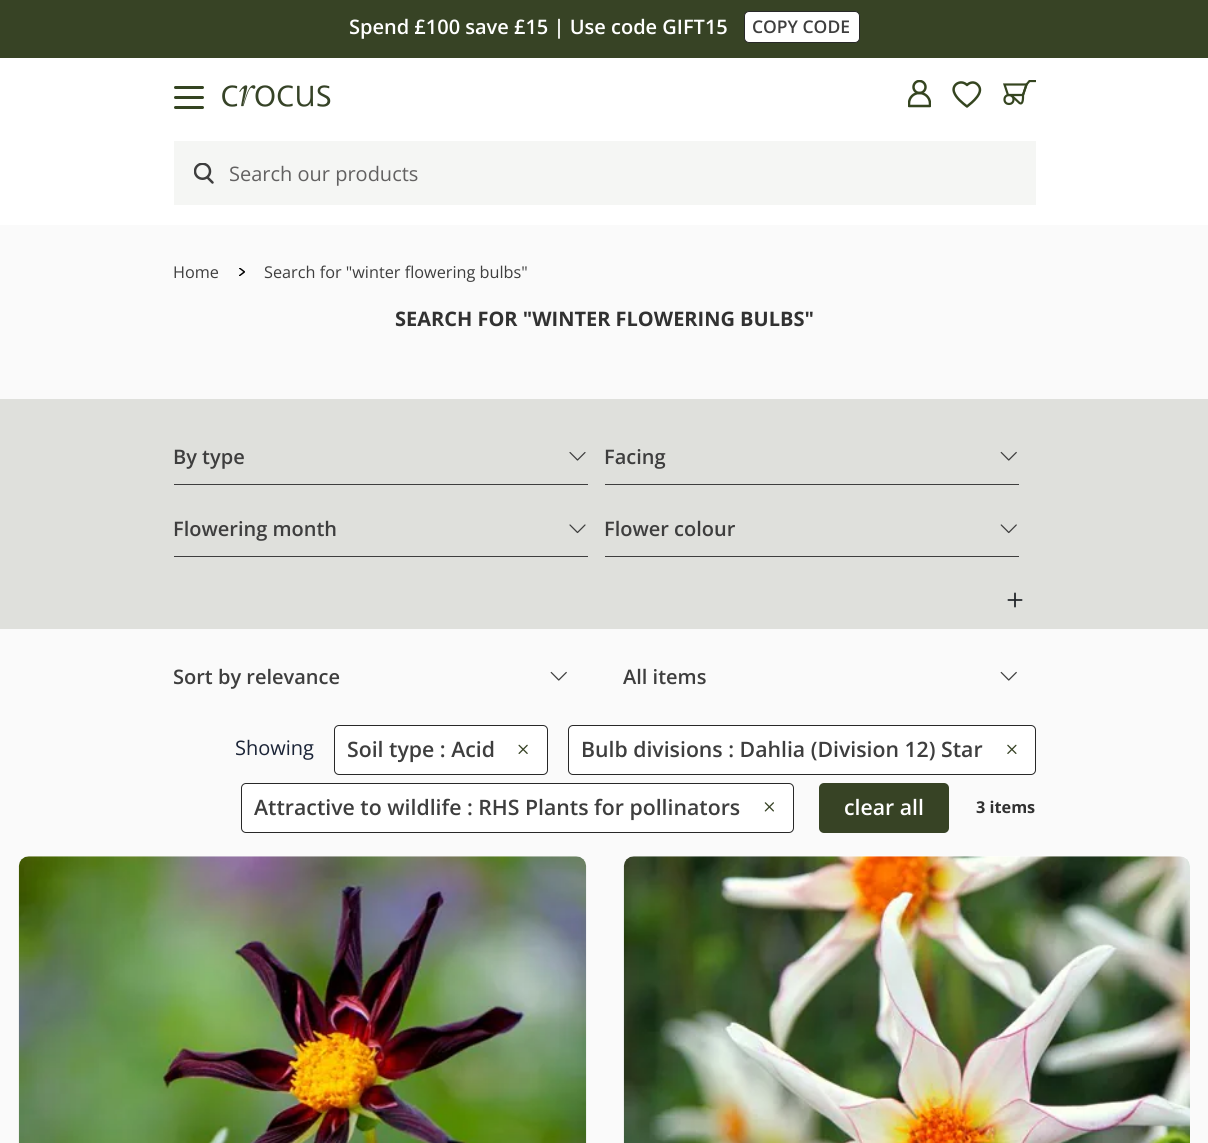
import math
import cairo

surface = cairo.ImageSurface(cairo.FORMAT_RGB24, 1208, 1143)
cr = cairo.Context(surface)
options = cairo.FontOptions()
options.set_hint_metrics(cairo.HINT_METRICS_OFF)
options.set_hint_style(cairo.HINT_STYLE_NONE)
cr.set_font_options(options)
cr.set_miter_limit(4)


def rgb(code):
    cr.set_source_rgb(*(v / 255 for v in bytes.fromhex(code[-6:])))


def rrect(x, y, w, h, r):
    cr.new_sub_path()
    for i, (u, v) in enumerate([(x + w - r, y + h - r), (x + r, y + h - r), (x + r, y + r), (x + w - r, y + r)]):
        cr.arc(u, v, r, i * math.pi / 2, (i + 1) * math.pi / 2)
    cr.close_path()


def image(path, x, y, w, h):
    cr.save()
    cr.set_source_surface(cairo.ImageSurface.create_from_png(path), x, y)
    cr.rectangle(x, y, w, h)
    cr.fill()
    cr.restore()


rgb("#fafafa")
cr.paint()
rgb("#ffffff")
cr.rectangle(0, 58, 1208, 167)
cr.fill()
rgb("#374325")
cr.rectangle(0, 0, 1208, 58)
cr.fill()
rgb("#ffffff")
rrect(744.5, 11.5, 115, 31, 4.5)
cr.fill_preserve()
rgb("#282828")
cr.set_line_width(1)
cr.stroke()
rgb("#344421")
rrect(174, 86, 30, 3, 1.5)
cr.fill()
rrect(174, 96, 30, 3, 1.5)
cr.fill()
rrect(174, 106, 30, 3, 1.5)
cr.fill()
image("img/1.png", 222, 85, 109, 22)
cr.save()
cr.rectangle(908, 80, 23, 28)
cr.clip()
cr.new_path()
cr.move_to(919.5, 93)
cr.curve_to(925, 93, 930, 97.5, 930, 103.5)
cr.line_to(930, 106)
cr.line_to(909, 106)
cr.line_to(909, 103.5)
cr.curve_to(909, 97.5, 913.5, 93, 919.5, 93)
cr.close_path()
rgb("#354520")
cr.set_line_width(2.5)
cr.set_line_cap(cairo.LINE_CAP_ROUND)
cr.set_line_join(cairo.LINE_JOIN_ROUND)
cr.stroke()
cr.arc(919.5, 87, 6, 0, 2 * math.pi)
cr.set_line_cap(cairo.LINE_CAP_BUTT)
cr.set_line_join(cairo.LINE_JOIN_MITER)
cr.stroke()
cr.restore()
cr.new_path()
cr.move_to(977.5, 84.5)
cr.curve_to(974.5, 81.5, 970, 82, 967, 85)
cr.curve_to(961, 79, 951.5, 84.5, 954, 92)
cr.curve_to(956, 98, 962.5, 103, 967, 106.5)
cr.curve_to(972, 102.5, 985.5, 92, 977.5, 84.5)
cr.close_path()
rgb("#354520")
cr.set_line_width(2.5)
cr.set_line_cap(cairo.LINE_CAP_ROUND)
cr.set_line_join(cairo.LINE_JOIN_ROUND)
cr.stroke()
cr.new_path()
cr.move_to(1023, 95)
cr.line_to(1008, 95)
cr.line_to(1004.5, 84.5)
cr.line_to(1026.5, 84.5)
cr.close_path()
cr.set_line_width(2.2)
cr.set_line_cap(cairo.LINE_CAP_BUTT)
cr.set_line_join(cairo.LINE_JOIN_MITER)
cr.stroke()
cr.save()
cr.rectangle(1003, 80, 33, 25)
cr.clip()
cr.new_path()
cr.move_to(1011, 95)
cr.line_to(1019.5, 103)
cr.curve_to(1023.5, 105.5, 1023, 96.5, 1023, 95)
cr.line_to(1026.5, 84.5)
cr.line_to(1029.5, 81)
cr.line_to(1036, 81)
cr.stroke()
cr.restore()
cr.arc(1009, 99.5, 4.5, 0, 2 * math.pi)
cr.stroke()
rgb("#f5f6f4")
cr.rectangle(174, 141, 862, 64)
cr.fill()
image("img/2.png", 194, 163, 20, 21)
image("img/3.png", 239, 268, 6, 8)
rgb("#dfe0dc")
cr.rectangle(0, 399, 1208, 230)
cr.fill()
rgb("#3e3e3e")
cr.rectangle(174, 484, 414, 1)
cr.fill()
image("img/4.png", 569, 452, 17, 9)
cr.rectangle(605, 484, 414, 1)
cr.fill()
image("img/5.png", 1000, 451, 17, 10)
cr.rectangle(174, 556, 414, 1)
cr.fill()
image("img/6.png", 569, 524, 17, 10)
cr.rectangle(605, 556, 414, 1)
cr.fill()
image("img/7.png", 1000, 524, 17, 10)
image("img/8.png", 1007, 592, 16, 16)
image("img/9.png", 550, 671, 17, 10)
image("img/9.png", 1000, 671, 17, 10)
rgb("#ffffff")
rrect(334.5, 725.5, 213, 49, 4.5)
cr.fill_preserve()
rgb("#282828")
cr.set_line_width(1)
cr.stroke()
image("img/10.png", 518, 744, 10, 10)
rgb("#ffffff")
rrect(568.5, 725.5, 467, 49, 4.5)
cr.fill_preserve()
rgb("#282828")
cr.stroke()
image("img/11.png", 1007, 744, 10, 10)
rgb("#ffffff")
rrect(241.5, 783.5, 552, 49, 4.5)
cr.fill_preserve()
rgb("#282828")
cr.stroke()
image("img/12.png", 764, 802, 10, 10)
rgb("#374325")
rrect(819, 783, 130, 50, 5)
cr.fill()
rgb("#ffffff")
rrect(19, 856, 567, 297, 10)
cr.fill()
image("img/13.png", 18, 856, 569, 287)
rrect(624, 856, 566, 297, 10)
cr.fill()
image("img/14.png", 623, 856, 567, 287)
cr.select_font_face("Open Sans SemiBold")
cr.set_font_size(20)
cr.move_to(349, 34)
cr.show_text("Spend £100 save £15 | Use code GIFT15")
cr.set_font_size(17.5)
rgb("#3e3e3e")
cr.move_to(752, 33)
cr.show_text("COPY CODE")
cr.select_font_face("Open Sans")
cr.set_font_size(20)
rgb("#626161")
cr.move_to(229, 181)
cr.show_text("Search our products")
cr.set_font_size(16.25)
rgb("#3e3e3e")
cr.move_to(173, 278)
cr.show_text("Home")
cr.move_to(264, 278)
cr.show_text("Search for \"winter flowering bulbs\"")
cr.select_font_face("Open Sans", cairo.FONT_SLANT_NORMAL, cairo.FONT_WEIGHT_BOLD)
cr.set_font_size(20)
rgb("#313131")
cr.move_to(395, 326)
cr.show_text("SEARCH FOR \"WINTER FLOWERING BULBS\"")
cr.select_font_face("Open Sans SemiBold")
rgb("#3e3e3e")
for x, y, s in [
    (173, 464, "By type"),
    (604, 464, "Facing"),
    (173, 536, "Flowering month"),
    (604, 536, "Flower colour"),
    (173, 684, "Sort by relevance"),
    (623, 684, "All items"),
]:
    cr.move_to(x, y)
    cr.show_text(s)
cr.select_font_face("Open Sans")
rgb("#1b2437")
cr.move_to(235, 755)
cr.show_text("Showing")
cr.select_font_face("Open Sans SemiBold")
cr.set_font_size(21.25)
rgb("#3e3e3e")
for x, y, s in [
    (347, 757, "Soil type : Acid"),
    (581, 757, "Bulb divisions : Dahlia (Division 12) Star"),
    (254, 815, "Attractive to wildlife : RHS Plants for pollinators"),
]:
    cr.move_to(x, y)
    cr.show_text(s)
rgb("#ffffff")
cr.move_to(844, 815)
cr.show_text("clear all")
cr.select_font_face("Open Sans", cairo.FONT_SLANT_NORMAL, cairo.FONT_WEIGHT_BOLD)
cr.set_font_size(16.25)
rgb("#313131")
cr.move_to(976, 813)
cr.show_text("3 items")
surface.write_to_png("page.png")
